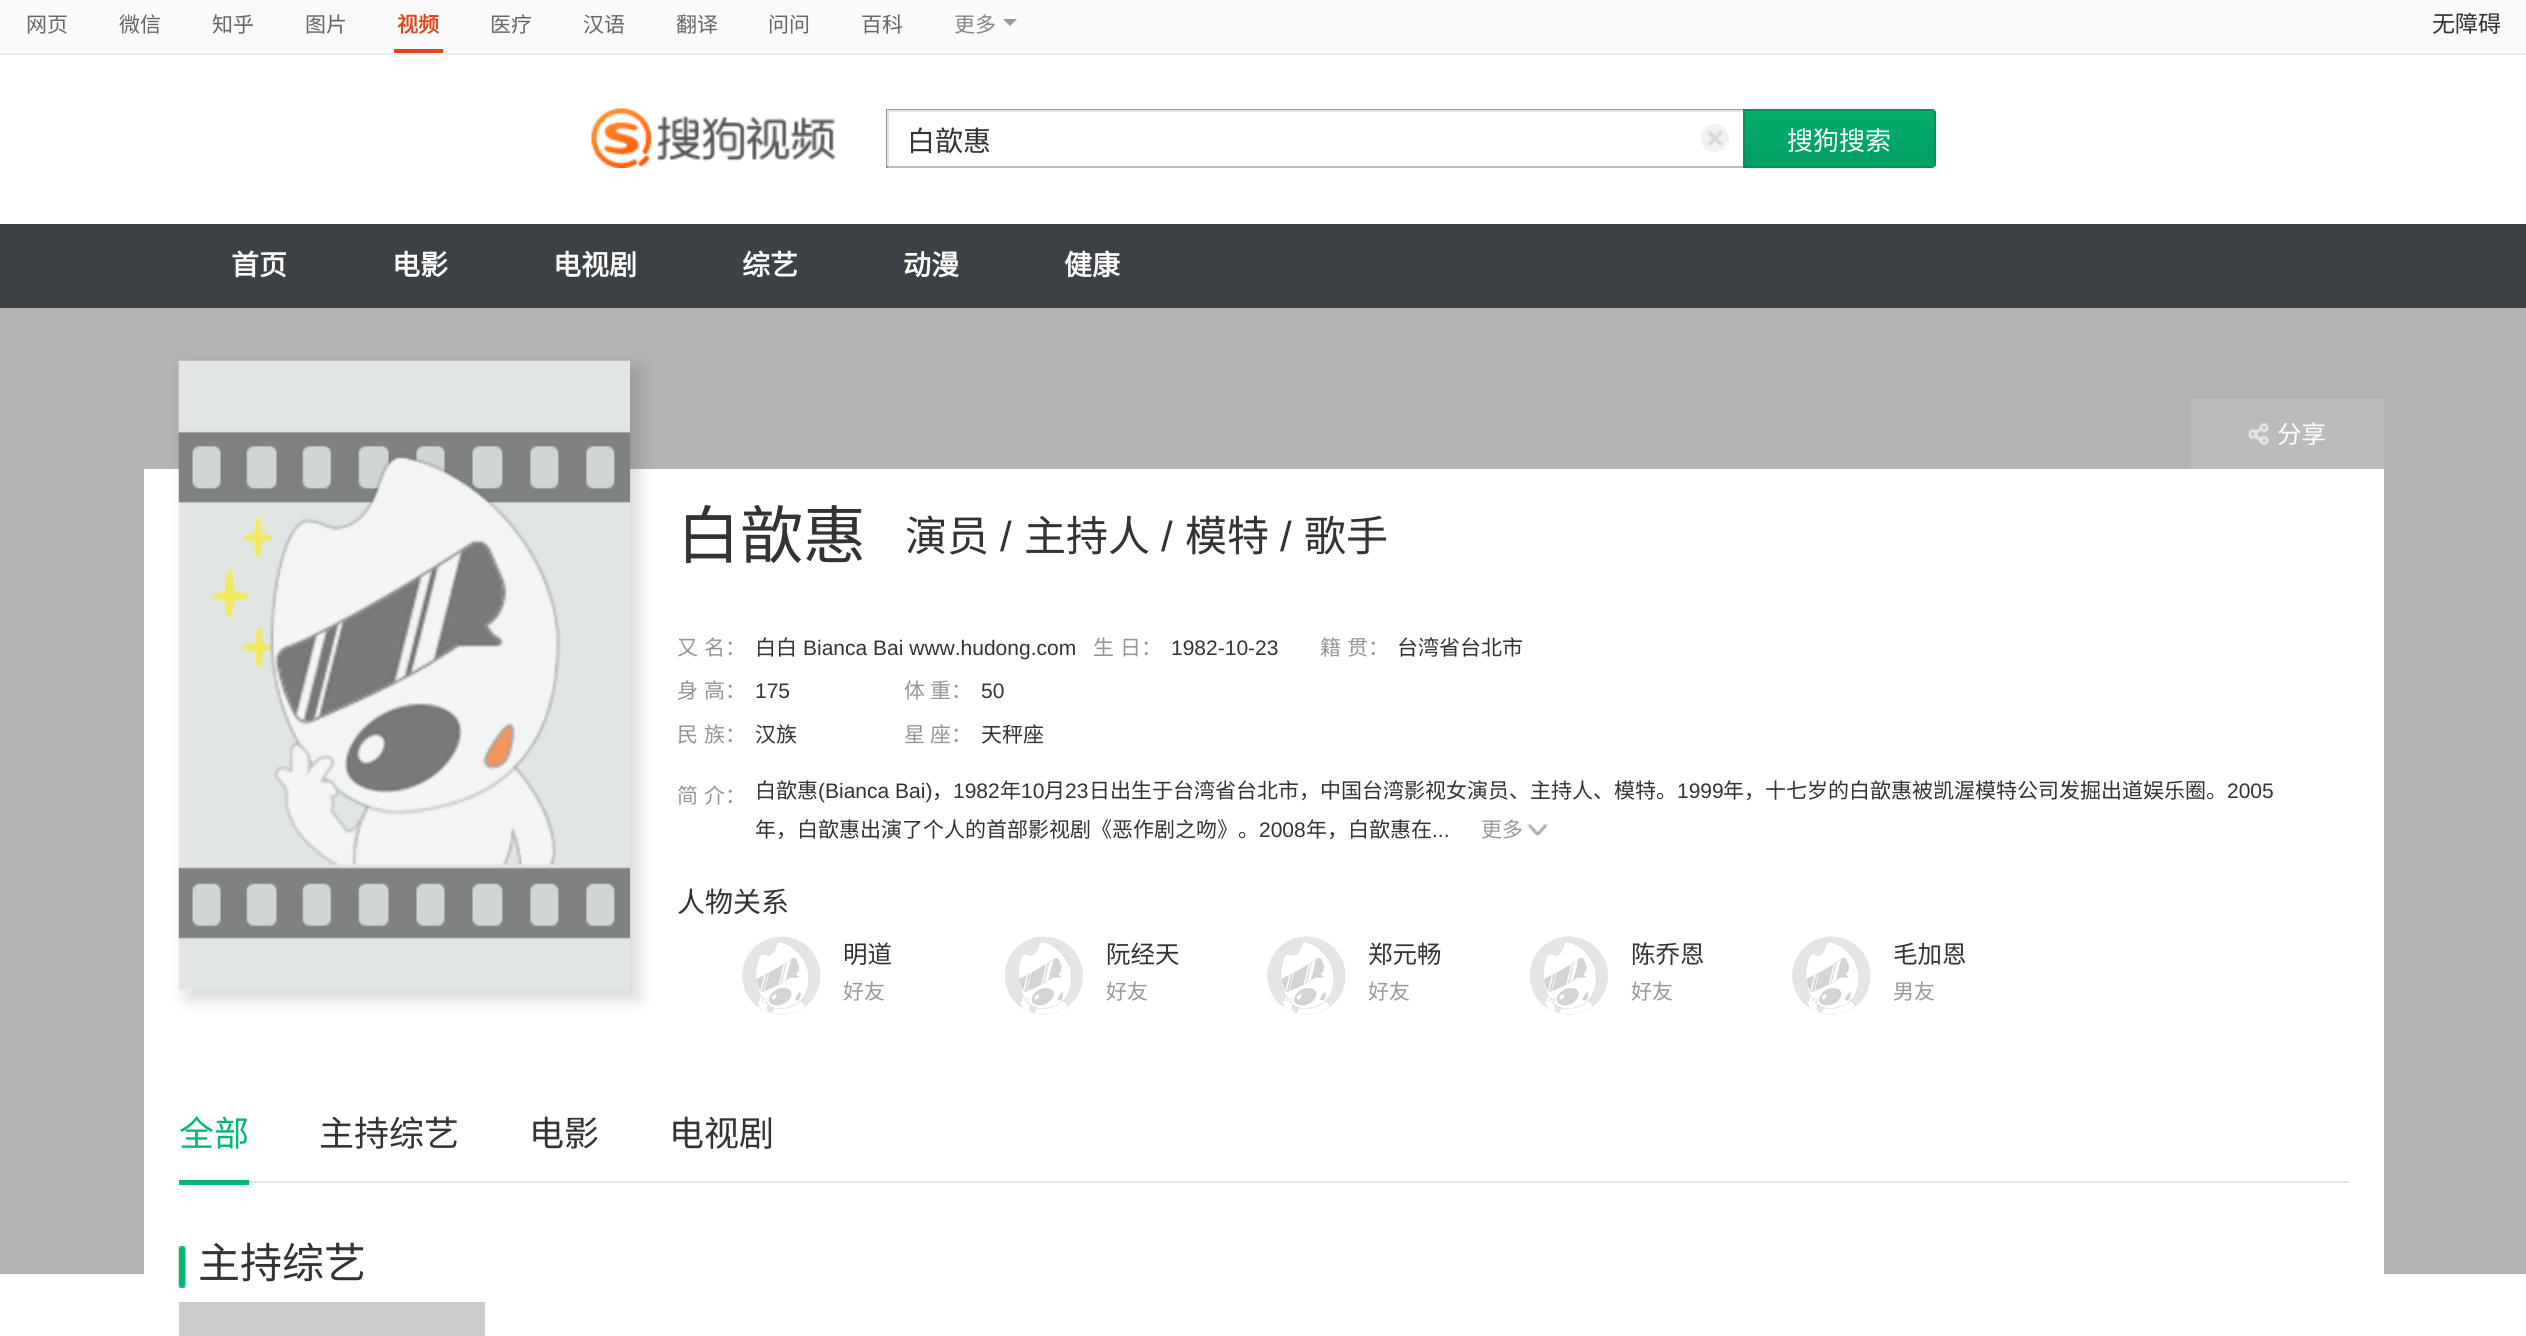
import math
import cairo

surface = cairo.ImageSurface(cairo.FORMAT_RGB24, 2526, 1336)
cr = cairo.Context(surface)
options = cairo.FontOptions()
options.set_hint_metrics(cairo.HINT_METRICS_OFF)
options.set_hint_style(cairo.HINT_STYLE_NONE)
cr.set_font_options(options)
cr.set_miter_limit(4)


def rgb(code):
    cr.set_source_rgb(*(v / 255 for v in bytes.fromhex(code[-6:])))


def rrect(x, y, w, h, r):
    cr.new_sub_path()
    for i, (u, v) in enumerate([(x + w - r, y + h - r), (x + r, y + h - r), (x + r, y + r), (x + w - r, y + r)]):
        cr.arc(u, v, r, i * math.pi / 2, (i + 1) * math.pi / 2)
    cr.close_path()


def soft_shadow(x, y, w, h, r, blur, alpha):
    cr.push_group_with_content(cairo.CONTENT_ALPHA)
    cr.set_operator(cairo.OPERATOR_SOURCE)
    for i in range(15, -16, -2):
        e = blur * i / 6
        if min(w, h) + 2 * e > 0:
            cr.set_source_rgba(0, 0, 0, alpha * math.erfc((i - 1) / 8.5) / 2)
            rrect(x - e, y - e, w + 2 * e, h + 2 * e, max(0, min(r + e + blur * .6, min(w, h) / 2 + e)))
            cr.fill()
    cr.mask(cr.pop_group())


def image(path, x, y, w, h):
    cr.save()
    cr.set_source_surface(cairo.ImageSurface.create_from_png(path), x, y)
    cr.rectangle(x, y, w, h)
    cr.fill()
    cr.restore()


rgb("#ffffff")
cr.paint()
for x, y, w, h, color in [
    (0, 0, 2526, 53, "#fafafa"),
    (0, 53, 2526, 2, "#ececec"),
    (394, 49, 49, 4, "#e1451b"),
]:
    rgb(color)
    cr.rectangle(x, y, w, h)
    cr.fill()
rgb("#999999")
cr.new_path()
cr.move_to(1003, 19)
cr.line_to(1017, 19)
cr.line_to(1010, 26)
cr.close_path()
cr.fill()
image("img/1.png", 591, 108, 245, 60)
for x, y, w, h, color in [
    (886, 109, 857, 1, "#979797"),
    (886, 166, 857, 2, "#bcbcbc"),
    (886, 109, 2, 59, "#979797"),
    (887, 110, 856, 2, "#e5e5e5"),
    (887, 110, 2, 56, "#e5e5e5"),
]:
    rgb(color)
    cr.rectangle(x, y, w, h)
    cr.fill()
image("img/2.png", 1701, 124, 28, 28)
cr.save()
cr.new_path()
cr.move_to(1743, 109)
cr.line_to(1932, 109)
cr.curve_to(1934, 109, 1936, 111, 1936, 113)
cr.line_to(1936, 164)
cr.curve_to(1936, 166, 1934, 168, 1932, 168)
cr.line_to(1743, 168)
cr.close_path()
cr.clip()
gradient = cairo.LinearGradient(1839, 110, 1839, 166)
gradient.add_color_stop_rgba(0, 0.008, 0.682, 0.42, 1)
gradient.add_color_stop_rgba(1, 0.004, 0.624, 0.384, 1)
cr.set_source(gradient)
cr.rectangle(1745, 110, 191, 56)
cr.fill()
cr.restore()
cr.new_path()
cr.move_to(1744, 110)
cr.line_to(1932, 110)
cr.curve_to(1933.5, 110, 1935, 111.5, 1935, 113)
cr.line_to(1935, 164)
cr.curve_to(1935, 165.5, 1933.5, 167, 1932, 167)
cr.line_to(1744, 167)
cr.close_path()
rgb("#02915a")
cr.stroke()
for x, y, w, h, color in [
    (0, 224, 2526, 84, "#3c4145"),
    (0, 308, 2526, 966, "#b3b3b3"),
    (144, 469, 2240, 805, "#ffffff"),
    (2191, 399, 193, 70, "#bbbbbb"),
]:
    rgb(color)
    cr.rectangle(x, y, w, h)
    cr.fill()
image("img/3.png", 2248, 423, 21, 22)
rgb("#000000")
soft_shadow(187, 369, 452, 630, 0, 9, 0.16)
image("img/4.png", 178, 360, 452, 631)
image("img/5.png", 1527, 824, 21, 13)
image("img/6.png", 742, 936, 79, 79)
image("img/7.png", 1004, 936, 79, 79)
image("img/8.png", 1267, 936, 79, 79)
image("img/9.png", 1529, 936, 79, 79)
image("img/10.png", 1792, 936, 79, 79)
rgb("#e5e5e5")
cr.rectangle(249, 1181, 2100, 2)
cr.fill()
rgb("#04b872")
cr.rectangle(179, 1180, 70, 5)
cr.fill()
image("img/11.png", 178, 1246, 8, 42)
rgb("#cccccc")
cr.rectangle(179, 1302, 306, 34)
cr.fill()
cr.select_font_face("Noto Sans CJK SC")
cr.set_font_size(21)
rgb("#666666")
for x, y, s in [
    (26, 32, "网页"),
    (119, 32, "微信"),
    (212, 32, "知乎"),
    (305, 32, "图片"),
]:
    cr.move_to(x, y)
    cr.show_text(s)
cr.select_font_face("Noto Sans CJK SC", cairo.FONT_SLANT_NORMAL, cairo.FONT_WEIGHT_BOLD)
rgb("#e1451b")
cr.move_to(397, 32)
cr.show_text("视频")
cr.select_font_face("Noto Sans CJK SC")
rgb("#666666")
for x, y, s in [
    (490, 32, "医疗"),
    (583, 32, "汉语"),
    (676, 32, "翻译"),
    (768, 32, "问问"),
    (861, 32, "百科"),
]:
    cr.move_to(x, y)
    cr.show_text(s)
rgb("#888888")
cr.move_to(954, 32)
cr.show_text("更多")
cr.set_font_size(23)
rgb("#333333")
cr.move_to(2432, 32)
cr.show_text("无障碍")
cr.set_font_size(28)
cr.move_to(907, 151)
cr.show_text("白歆惠")
cr.set_font_size(26)
rgb("#ffffff")
cr.move_to(1787, 150)
cr.show_text("搜狗搜索")
cr.select_font_face("Noto Sans CJK SC", cairo.FONT_SLANT_NORMAL, cairo.FONT_WEIGHT_BOLD)
cr.set_font_size(28)
for x, y, s in [
    (231, 275, "首页"),
    (392, 275, "电影"),
    (553, 275, "电视剧"),
    (742, 275, "综艺"),
    (903, 275, "动漫"),
    (1064, 275, "健康"),
]:
    cr.move_to(x, y)
    cr.show_text(s)
cr.select_font_face("Noto Sans CJK SC")
cr.set_font_size(24.5)
cr.move_to(2277, 443)
cr.show_text("分享")
cr.set_font_size(63)
rgb("#333333")
cr.move_to(677, 558)
cr.show_text("白歆惠")
cr.set_font_size(42)
cr.move_to(905, 551)
cr.show_text("演员")
cr.select_font_face("Liberation Sans")
cr.move_to(1000, 551)
cr.show_text("/")
cr.select_font_face("Noto Sans CJK SC")
cr.move_to(1024, 551)
cr.show_text("主持人")
cr.select_font_face("Liberation Sans")
cr.move_to(1161, 551)
cr.show_text("/")
cr.select_font_face("Noto Sans CJK SC")
cr.move_to(1185, 551)
cr.show_text("模特")
cr.select_font_face("Liberation Sans")
cr.move_to(1280, 551)
cr.show_text("/")
cr.select_font_face("Noto Sans CJK SC")
cr.move_to(1304, 551)
cr.show_text("歌手")
cr.set_font_size(21)
rgb("#939597")
cr.move_to(677, 655)
cr.show_text("又")
cr.move_to(704, 655)
cr.show_text("名：")
rgb("#333333")
cr.move_to(755, 655)
cr.show_text("白白")
cr.select_font_face("Liberation Sans")
cr.move_to(803, 655)
cr.show_text("Bianca Bai www.hudong.com")
cr.select_font_face("Noto Sans CJK SC")
rgb("#939597")
cr.move_to(1093, 655)
cr.show_text("生")
cr.move_to(1120, 655)
cr.show_text("日：")
cr.select_font_face("Liberation Sans")
rgb("#333333")
cr.move_to(1171, 655)
cr.show_text("1982-10-23")
cr.select_font_face("Noto Sans CJK SC")
rgb("#939597")
cr.move_to(1320, 655)
cr.show_text("籍")
cr.move_to(1347, 655)
cr.show_text("贯：")
rgb("#333333")
cr.move_to(1397, 655)
cr.show_text("台湾省台北市")
rgb("#939597")
cr.move_to(677, 698)
cr.show_text("身")
cr.move_to(704, 698)
cr.show_text("高：")
cr.select_font_face("Liberation Sans")
rgb("#333333")
cr.move_to(755, 698)
cr.show_text("175")
cr.select_font_face("Noto Sans CJK SC")
rgb("#939597")
cr.move_to(904, 698)
cr.show_text("体")
cr.move_to(930, 698)
cr.show_text("重：")
cr.select_font_face("Liberation Sans")
rgb("#333333")
cr.move_to(981, 698)
cr.show_text("50")
cr.select_font_face("Noto Sans CJK SC")
rgb("#939597")
cr.move_to(677, 742)
cr.show_text("民")
cr.move_to(704, 742)
cr.show_text("族：")
rgb("#333333")
cr.move_to(755, 742)
cr.show_text("汉族")
rgb("#939597")
cr.move_to(904, 742)
cr.show_text("星")
cr.move_to(930, 742)
cr.show_text("座：")
rgb("#333333")
cr.move_to(981, 742)
cr.show_text("天秤座")
rgb("#939597")
cr.move_to(677, 803)
cr.show_text("简")
cr.move_to(704, 803)
cr.show_text("介：")
rgb("#333333")
cr.move_to(755, 798)
cr.show_text("白歆惠")
cr.select_font_face("Liberation Sans")
cr.move_to(818, 798)
cr.show_text("(Bianca Bai)")
cr.select_font_face("Noto Sans CJK SC")
cr.move_to(932, 798)
cr.show_text("，")
cr.select_font_face("Liberation Sans")
cr.move_to(953, 798)
cr.show_text("1982")
cr.select_font_face("Noto Sans CJK SC")
cr.move_to(1000, 798)
cr.show_text("年")
cr.select_font_face("Liberation Sans")
cr.move_to(1021, 798)
cr.show_text("10")
cr.select_font_face("Noto Sans CJK SC")
cr.move_to(1044, 798)
cr.show_text("月")
cr.select_font_face("Liberation Sans")
cr.move_to(1065, 798)
cr.show_text("23")
cr.select_font_face("Noto Sans CJK SC")
cr.move_to(1089, 798)
cr.show_text("日出生于台湾省台北市，中国台湾影视女演员、主持人、模特。")
cr.select_font_face("Liberation Sans")
cr.move_to(1677, 798)
cr.show_text("1999")
cr.select_font_face("Noto Sans CJK SC")
cr.move_to(1723, 798)
cr.show_text("年，十七岁的白歆惠被凯渥模特公司发掘出道娱乐圈。")
cr.select_font_face("Liberation Sans")
cr.move_to(2227, 798)
cr.show_text("2005")
cr.select_font_face("Noto Sans CJK SC")
cr.move_to(755, 837)
cr.show_text("年，白歆惠出演了个人的首部影视剧《恶作剧之吻》。")
cr.select_font_face("Liberation Sans")
cr.move_to(1259, 837)
cr.show_text("2008")
cr.select_font_face("Noto Sans CJK SC")
cr.move_to(1306, 837)
cr.show_text("年，白歆惠在")
cr.select_font_face("Liberation Sans")
cr.move_to(1432, 837)
cr.show_text("...")
cr.select_font_face("Noto Sans CJK SC")
rgb("#999999")
cr.move_to(1481, 837)
cr.show_text("更多")
cr.set_font_size(28)
rgb("#333333")
cr.move_to(677, 912)
cr.show_text("人物关系")
cr.set_font_size(24.5)
cr.move_to(843, 963)
cr.show_text("明道")
cr.set_font_size(21)
rgb("#999999")
cr.move_to(843, 999)
cr.show_text("好友")
cr.set_font_size(24.5)
rgb("#333333")
cr.move_to(1106, 963)
cr.show_text("阮经天")
cr.set_font_size(21)
rgb("#999999")
cr.move_to(1106, 999)
cr.show_text("好友")
cr.set_font_size(24.5)
rgb("#333333")
cr.move_to(1368, 963)
cr.show_text("郑元畅")
cr.set_font_size(21)
rgb("#999999")
cr.move_to(1368, 999)
cr.show_text("好友")
cr.set_font_size(24.5)
rgb("#333333")
cr.move_to(1631, 963)
cr.show_text("陈乔恩")
cr.set_font_size(21)
rgb("#999999")
cr.move_to(1631, 999)
cr.show_text("好友")
cr.set_font_size(24.5)
rgb("#333333")
cr.move_to(1893, 963)
cr.show_text("毛加恩")
cr.set_font_size(21)
rgb("#999999")
cr.move_to(1893, 999)
cr.show_text("男友")
cr.set_font_size(35)
rgb("#04b872")
cr.move_to(179, 1146)
cr.show_text("全部")
rgb("#333333")
for x, y, s in [
    (319, 1146, "主持综艺"),
    (529, 1146, "电影"),
    (669, 1146, "电视剧"),
]:
    cr.move_to(x, y)
    cr.show_text(s)
cr.set_font_size(42)
cr.move_to(198, 1278)
cr.show_text("主持综艺")
surface.write_to_png("page.png")
